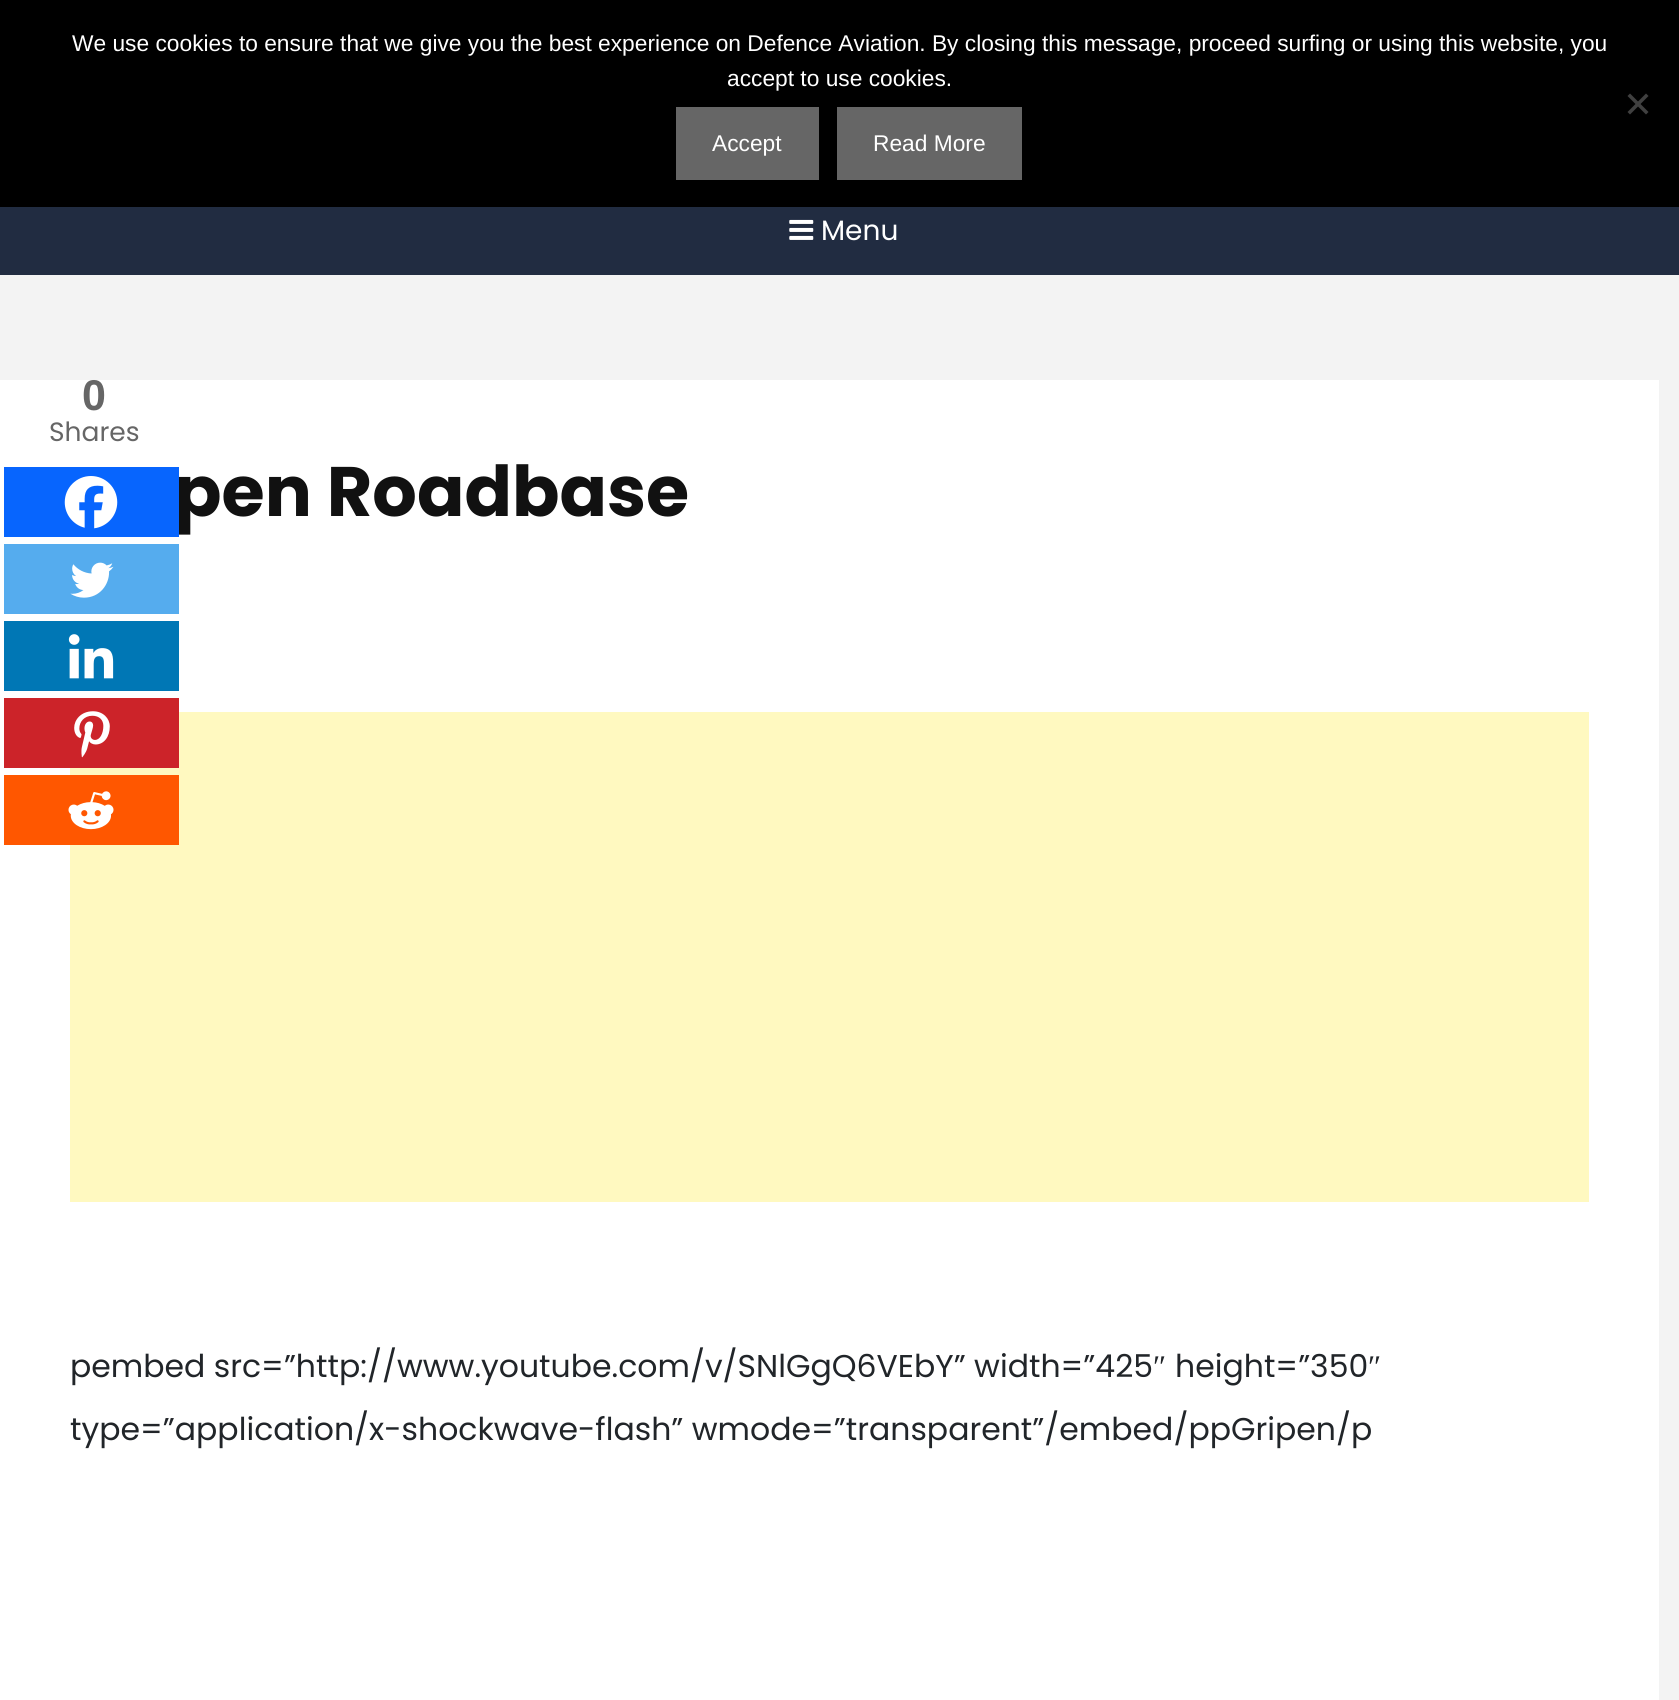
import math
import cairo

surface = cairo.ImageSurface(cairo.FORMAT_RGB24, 1679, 1700)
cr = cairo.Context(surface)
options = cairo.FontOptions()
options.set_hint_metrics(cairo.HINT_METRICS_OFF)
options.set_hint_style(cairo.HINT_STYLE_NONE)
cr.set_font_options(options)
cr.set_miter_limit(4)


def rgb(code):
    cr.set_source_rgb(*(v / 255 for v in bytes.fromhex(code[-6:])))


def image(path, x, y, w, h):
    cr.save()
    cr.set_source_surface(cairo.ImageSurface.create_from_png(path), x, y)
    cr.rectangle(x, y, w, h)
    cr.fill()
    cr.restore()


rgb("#f3f3f3")
cr.paint()
rgb("#000000")
cr.rectangle(0, 0, 1679, 207)
cr.fill()
rgb("#404040")
cr.new_path()
cr.move_to(1646, 93.5)
cr.line_to(1648.5, 96)
cr.line_to(1630, 114.5)
cr.line_to(1627.5, 112)
cr.close_path()
cr.fill()
cr.new_path()
cr.move_to(1627.5, 96)
cr.line_to(1630, 93.5)
cr.line_to(1648.5, 112)
cr.line_to(1646, 114.5)
cr.close_path()
cr.fill()
for x, y, w, h, color in [
    (676, 107, 143, 73, "#666666"),
    (837, 107, 185, 73, "#666666"),
    (0, 207, 1679, 68, "#212c41"),
]:
    rgb(color)
    cr.rectangle(x, y, w, h)
    cr.fill()
image("img/1.png", 789, 219, 25, 21)
rgb("#ffffff")
cr.rectangle(0, 380, 1659, 1320)
cr.fill()
rgb("#55acee")
cr.rectangle(4, 544, 175, 70)
cr.fill()
image("img/3.png", 70, 562, 44, 36)
rgb("#0077b5")
cr.rectangle(4, 621, 175, 70)
cr.fill()
image("img/4.png", 68, 634, 46, 45)
rgb("#fff9c0")
cr.rectangle(70, 712, 1519, 490)
cr.fill()
rgb("#cc2329")
cr.rectangle(4, 698, 175, 70)
cr.fill()
image("img/5.png", 74, 711, 36, 47)
rgb("#ff5700")
cr.rectangle(4, 775, 175, 70)
cr.fill()
image("img/6.png", 68, 791, 46, 39)
cr.select_font_face("Liberation Sans")
cr.set_font_size(22.75)
rgb("#ffffff")
for x, y, s in [
    (72, 51, "We use cookies to ensure that we give you the best experience on Defence Aviation. By closing this message, proceed surfing or using this website, you"),
    (727, 86, "accept to use cookies."),
    (712, 151, "Accept"),
    (873, 151, "Read More"),
]:
    cr.move_to(x, y)
    cr.show_text(s)
cr.select_font_face("Poppins")
cr.set_font_size(28)
cr.move_to(821, 240)
cr.show_text("Menu")
cr.select_font_face("Liberation Sans", cairo.FONT_SLANT_NORMAL, cairo.FONT_WEIGHT_BOLD)
cr.set_font_size(43)
rgb("#666666")
cr.move_to(82, 410)
cr.show_text("0")
cr.select_font_face("Poppins")
cr.set_font_size(26.5)
cr.move_to(49, 441)
cr.show_text("Shares")
cr.set_font_size(31.5)
rgb("#212529")
cr.move_to(70, 1377)
cr.show_text("pembed src=”http://www.youtube.com/v/SNlGgQ6VEbY” width=”425")
cr.select_font_face("Liberation Serif")
cr.move_to(1153, 1377)
cr.show_text("″")
cr.select_font_face("Poppins")
cr.move_to(1175, 1377)
cr.show_text("height=”350")
cr.select_font_face("Liberation Serif")
cr.move_to(1368, 1377)
cr.show_text("″")
cr.select_font_face("Poppins")
cr.move_to(70, 1440)
cr.show_text("type=”application/x-shockwave-flash” wmode=”transparent”/embed/ppGripen/p")
cr.select_font_face("Poppins", cairo.FONT_SLANT_NORMAL, cairo.FONT_WEIGHT_BOLD)
cr.set_font_size(70)
rgb("#111111")
cr.move_to(174, 516)
cr.show_text("pen Roadbase")
rgb("#0765fe")
cr.rectangle(4, 467, 175, 70)
cr.fill()
image("img/2.png", 64, 476, 54, 53)
surface.write_to_png("page.png")
